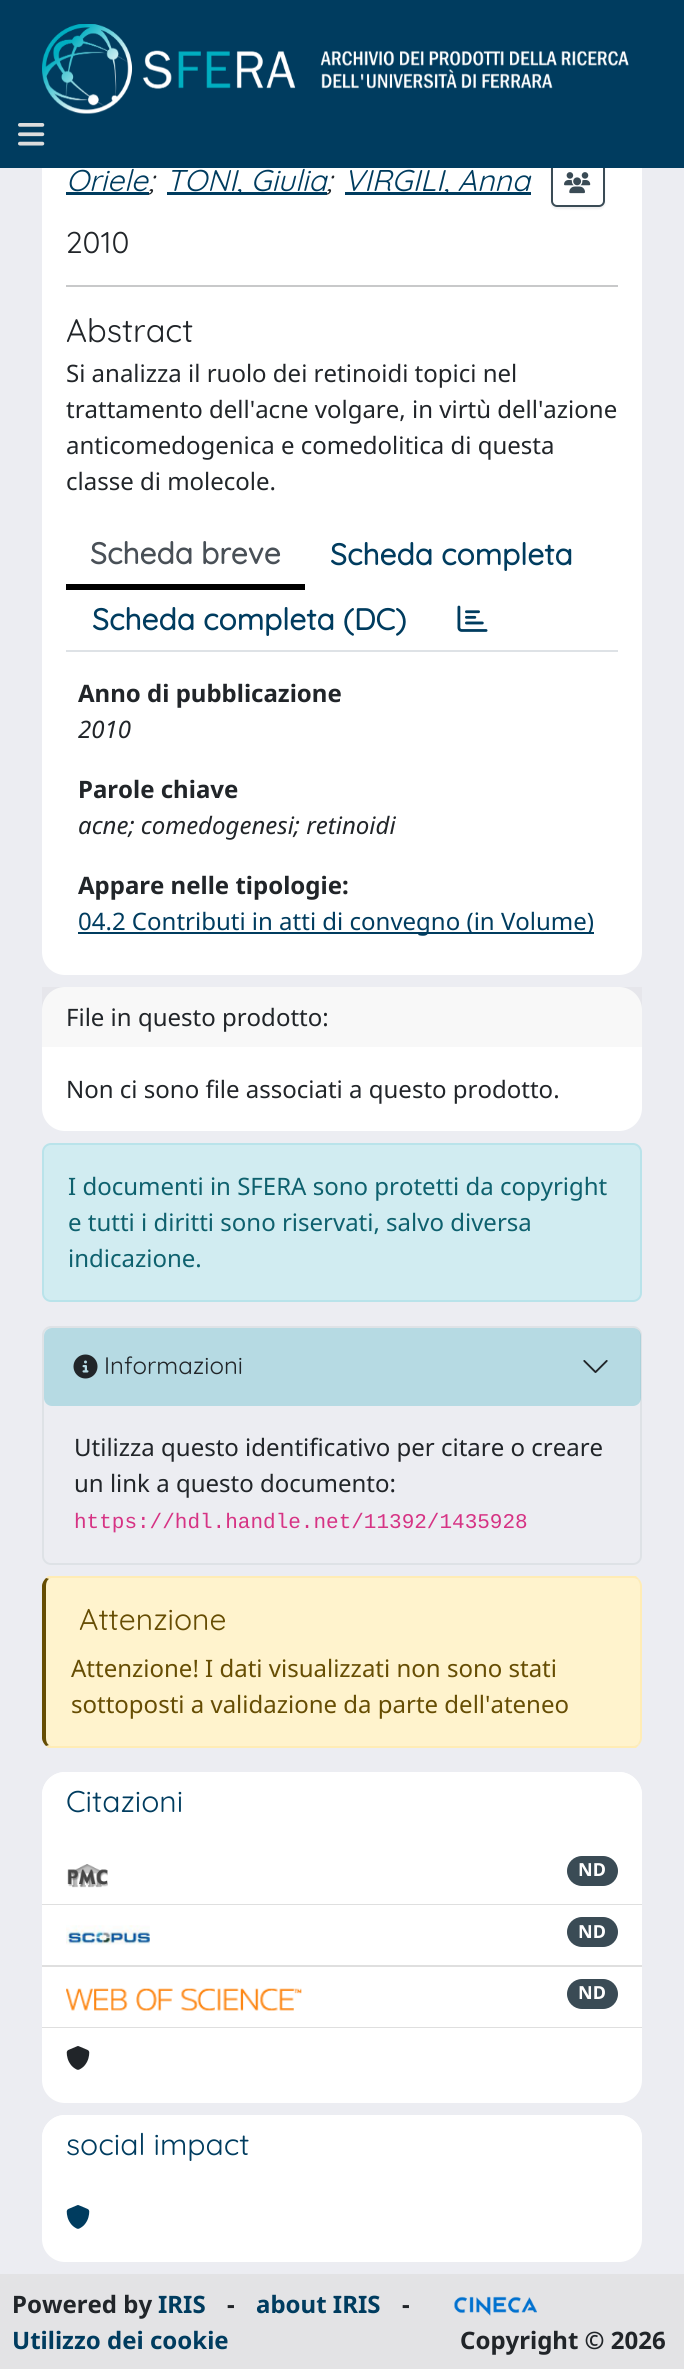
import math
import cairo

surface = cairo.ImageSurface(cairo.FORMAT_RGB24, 684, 2369)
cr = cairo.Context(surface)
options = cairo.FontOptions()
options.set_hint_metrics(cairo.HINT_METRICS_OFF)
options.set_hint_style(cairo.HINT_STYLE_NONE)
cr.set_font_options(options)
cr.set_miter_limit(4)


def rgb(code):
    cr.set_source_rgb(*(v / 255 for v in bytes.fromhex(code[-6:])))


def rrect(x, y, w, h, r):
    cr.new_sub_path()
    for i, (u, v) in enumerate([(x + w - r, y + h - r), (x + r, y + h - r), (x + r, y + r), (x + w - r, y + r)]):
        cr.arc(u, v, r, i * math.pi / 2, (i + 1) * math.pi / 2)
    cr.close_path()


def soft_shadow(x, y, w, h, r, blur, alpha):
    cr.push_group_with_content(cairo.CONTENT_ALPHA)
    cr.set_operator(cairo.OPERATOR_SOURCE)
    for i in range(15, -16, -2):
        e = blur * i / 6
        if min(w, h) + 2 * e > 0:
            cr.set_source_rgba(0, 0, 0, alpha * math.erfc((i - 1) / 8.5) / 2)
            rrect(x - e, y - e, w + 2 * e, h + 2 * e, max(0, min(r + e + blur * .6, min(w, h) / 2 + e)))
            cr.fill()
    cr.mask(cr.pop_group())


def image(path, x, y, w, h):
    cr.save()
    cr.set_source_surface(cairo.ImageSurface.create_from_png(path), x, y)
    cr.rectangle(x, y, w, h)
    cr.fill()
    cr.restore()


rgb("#ecedf2")
cr.paint()
rgb("#ffffff")
rrect(42, 3, 600, 972, 23)
cr.fill()
cr.save()
cr.set_fill_rule(cairo.FILL_RULE_EVEN_ODD)
cr.new_path()
cr.move_to(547, 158)
cr.line_to(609, 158)
cr.line_to(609, 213)
cr.line_to(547, 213)
cr.close_path()
cr.move_to(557, 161)
cr.line_to(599, 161)
cr.curve_to(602.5, 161, 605, 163.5, 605, 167)
cr.line_to(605, 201)
cr.curve_to(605, 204.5, 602.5, 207, 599, 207)
cr.line_to(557, 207)
cr.curve_to(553.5, 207, 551, 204.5, 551, 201)
cr.line_to(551, 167)
cr.curve_to(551, 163.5, 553.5, 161, 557, 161)
cr.close_path()
cr.clip()
rgb("#000000")
soft_shadow(551, 162, 54, 47, 6, 1, 0.07)
cr.restore()
rrect(552, 162, 52, 44, 5)
rgb("#3a4b55")
cr.stroke()
rgb("#003c5f")
cr.rectangle(0, 0, 684, 168)
cr.fill()
image("img/1.png", 42, 24, 587, 90)
image("img/2.png", 18, 123, 27, 23)
for x, y, w, h, color in [
    (66, 192, 83, 3, "#003c5f"),
    (167, 192, 160, 3, "#003c5f"),
    (345, 192, 186, 3, "#003c5f"),
]:
    rgb(color)
    cr.rectangle(x, y, w, h)
    cr.fill()
image("img/3.png", 564, 172, 27, 22)
for x, y, w, h, color in [
    (66, 285, 552, 2, "#c8c9ca"),
    (66, 650, 552, 2, "#dee2e6"),
    (66, 584, 239, 6, "#000000"),
]:
    rgb(color)
    cr.rectangle(x, y, w, h)
    cr.fill()
image("img/4.png", 457, 605, 31, 27)
rgb("#003c5f")
cr.rectangle(78, 932, 516, 2)
cr.fill()
rgb("#ffffff")
rrect(42, 987, 600, 144, 23)
cr.fill()
cr.set_source_rgba(0, 0, 0, 0.03)
cr.rectangle(42, 987, 600, 60)
cr.fill()
rgb("#d1ecf1")
rrect(43, 1144, 598, 157, 8)
cr.fill_preserve()
rgb("#b9e3ea")
cr.stroke()
rrect(43, 1327, 598, 237, 8)
rgb("#dee2e6")
cr.stroke()
cr.set_source_rgba(0.09, 0.635, 0.722, 0.25)
rrect(44, 1328, 597, 78, 8)
cr.fill()
image("img/5.png", 73, 1354, 25, 25)
image("img/6.png", 583, 1360, 25, 13)
rgb("#fff3cd")
cr.new_path()
cr.move_to(51, 1578)
cr.line_to(633, 1578)
cr.curve_to(637, 1578, 640, 1581, 640, 1586)
cr.line_to(640, 1738)
cr.curve_to(640, 1743, 637, 1746, 633, 1746)
cr.line_to(51, 1746)
cr.curve_to(49, 1746, 46, 1743, 46, 1738)
cr.line_to(46, 1586)
cr.curve_to(46, 1581, 49, 1578, 51, 1578)
cr.close_path()
cr.fill()
rgb("#ffecb5")
cr.new_path()
cr.move_to(51, 1578)
cr.line_to(49, 1579)
cr.line_to(46, 1578)
cr.line_to(48, 1576)
cr.line_to(636, 1576)
cr.line_to(639, 1579)
cr.line_to(638, 1580)
cr.curve_to(637, 1579, 635, 1578, 633, 1578)
cr.close_path()
cr.fill()
cr.new_path()
cr.move_to(642, 1738)
cr.line_to(642, 1586)
cr.curve_to(642, 1584, 641, 1581, 639, 1579)
cr.line_to(638, 1580)
cr.curve_to(639, 1582, 640, 1584, 640, 1586)
cr.line_to(640, 1738)
cr.curve_to(640, 1740, 639, 1742, 638, 1744)
cr.line_to(639, 1745)
cr.curve_to(641, 1743, 642, 1740, 642, 1738)
cr.close_path()
cr.fill()
cr.new_path()
cr.move_to(48, 1748)
cr.line_to(46, 1746)
cr.line_to(49, 1745)
cr.line_to(51, 1746)
cr.line_to(633, 1746)
cr.curve_to(635, 1746, 637, 1745, 638, 1744)
cr.line_to(639, 1745)
cr.line_to(636, 1748)
cr.close_path()
cr.fill()
rgb("#664d03")
cr.new_path()
cr.move_to(42, 1586)
cr.line_to(42, 1738)
cr.curve_to(42, 1741, 44, 1744, 46, 1746)
cr.line_to(49, 1745)
cr.curve_to(47, 1744, 46, 1741, 46, 1738)
cr.line_to(46, 1586)
cr.curve_to(46, 1583, 47, 1580, 49, 1579)
cr.line_to(46, 1578)
cr.curve_to(44, 1580, 42, 1583, 42, 1586)
cr.close_path()
cr.fill()
rgb("#ffffff")
rrect(42, 1772, 600, 331, 23)
cr.fill()
cr.new_path()
cr.move_to(65, 1772)
cr.line_to(619, 1772)
cr.curve_to(631.5, 1772, 642, 1782.5, 642, 1795)
cr.line_to(642, 1844)
cr.line_to(42, 1844)
cr.line_to(42, 1795)
cr.curve_to(42, 1782.5, 52.5, 1772, 65, 1772)
cr.close_path()
cr.fill()
rgb("#dfdfdf")
cr.rectangle(42, 1904, 600, 1)
cr.fill()
image("img/7.png", 67, 1864, 41, 24)
rgb("#3a4b55")
rrect(567, 1856, 51, 30, 15)
cr.fill()
rgb("#dfdfdf")
cr.rectangle(42, 1965, 600, 2)
cr.fill()
image("img/8.png", 66, 1925, 84, 20)
rgb("#3a4b55")
rrect(567, 1917, 51, 30, 15)
cr.fill()
rgb("#dfdfdf")
cr.rectangle(42, 2027, 600, 1)
cr.fill()
image("img/9.png", 66, 1988, 236, 23)
rgb("#3a4b55")
rrect(567, 1979, 51, 30, 15)
cr.fill()
image("img/10.png", 66, 2046, 24, 24)
rgb("#ffffff")
rrect(42, 2115, 600, 147, 23)
cr.fill()
cr.new_path()
cr.move_to(65, 2115)
cr.line_to(619, 2115)
cr.curve_to(631.5, 2115, 642, 2125.5, 642, 2138)
cr.line_to(642, 2187)
cr.line_to(42, 2187)
cr.line_to(42, 2138)
cr.curve_to(42, 2125.5, 52.5, 2115, 65, 2115)
cr.close_path()
cr.fill()
image("img/11.png", 66, 2205, 24, 24)
rgb("#e3e3e5")
cr.rectangle(0, 2274, 684, 95)
cr.fill()
image("img/12.png", 454, 2296, 83, 20)
cr.select_font_face("Quicksand", cairo.FONT_SLANT_ITALIC)
cr.set_font_size(30)
rgb("#003c5f")
cr.move_to(66, 191)
cr.show_text("Oriele")
rgb("#212529")
cr.move_to(148, 191)
cr.show_text(";")
rgb("#003c5f")
cr.move_to(166, 191)
cr.show_text("TONI, Giulia")
rgb("#212529")
cr.move_to(326, 191)
cr.show_text(";")
rgb("#003c5f")
cr.move_to(344, 191)
cr.show_text("VIRGILI, Anna")
cr.select_font_face("Quicksand")
rgb("#212529")
cr.move_to(66, 253)
cr.show_text("2010")
cr.set_font_size(32.5)
cr.move_to(66, 342)
cr.show_text("Abstract")
cr.select_font_face("Noto Sans")
cr.set_font_size(24)
for x, y, s in [
    (66, 382, "Si analizza il ruolo dei retinoidi topici nel"),
    (66, 418, "trattamento dell'acne volgare, in virtù dell'azione"),
    (66, 454, "anticomedogenica e comedolitica di questa"),
    (66, 490, "classe di molecole."),
]:
    cr.move_to(x, y)
    cr.show_text(s)
cr.select_font_face("Quicksand", cairo.FONT_SLANT_NORMAL, cairo.FONT_WEIGHT_BOLD)
cr.set_font_size(30)
rgb("#495057")
cr.move_to(90, 564)
cr.show_text("Scheda breve")
rgb("#003c5f")
cr.move_to(330, 565)
cr.show_text("Scheda completa")
cr.move_to(92, 630)
cr.show_text("Scheda completa (DC)")
cr.select_font_face("Noto Sans", cairo.FONT_SLANT_NORMAL, cairo.FONT_WEIGHT_BOLD)
cr.set_font_size(24)
rgb("#212529")
cr.move_to(78, 702)
cr.show_text("Anno di pubblicazione")
cr.select_font_face("Noto Sans", cairo.FONT_SLANT_ITALIC)
cr.move_to(78, 738)
cr.show_text("2010")
cr.select_font_face("Noto Sans", cairo.FONT_SLANT_NORMAL, cairo.FONT_WEIGHT_BOLD)
cr.move_to(78, 798)
cr.show_text("Parole chiave")
cr.select_font_face("Noto Sans", cairo.FONT_SLANT_ITALIC)
cr.move_to(78, 834)
cr.show_text("acne; comedogenesi; retinoidi")
cr.select_font_face("Noto Sans", cairo.FONT_SLANT_NORMAL, cairo.FONT_WEIGHT_BOLD)
cr.move_to(78, 894)
cr.show_text("Appare nelle tipologie:")
cr.select_font_face("Noto Sans")
rgb("#003c5f")
cr.move_to(78, 930)
cr.show_text("04.2 Contributi in atti di convegno (in Volume)")
rgb("#212529")
cr.move_to(66, 1026)
cr.show_text("File in questo prodotto:")
cr.move_to(66, 1098)
cr.show_text("Non ci sono file associati a questo prodotto.")
rgb("#0e616e")
for x, y, s in [
    (68, 1195, "I documenti in SFERA sono protetti da copyright"),
    (68, 1231, "e tutti i diritti sono riservati, salvo diversa"),
    (68, 1267, "indicazione."),
]:
    cr.move_to(x, y)
    cr.show_text(s)
cr.select_font_face("Quicksand")
rgb("#212529")
cr.move_to(104, 1374)
cr.show_text("Informazioni")
cr.select_font_face("Noto Sans")
cr.move_to(74, 1456)
cr.show_text("Utilizza questo identificativo per citare o creare")
cr.move_to(74, 1492)
cr.show_text("un link a questo documento:")
cr.select_font_face("Liberation Mono")
cr.set_font_size(21)
rgb("#d63384")
cr.move_to(74, 1528)
cr.show_text("https://hdl.handle.net/11392/1435928")
cr.select_font_face("Quicksand")
cr.set_font_size(30)
rgb("#664d03")
cr.move_to(79, 1630)
cr.show_text("Attenzione")
cr.select_font_face("Noto Sans")
cr.set_font_size(24)
cr.move_to(71, 1677)
cr.show_text("Attenzione! I dati visualizzati non sono stati")
cr.move_to(71, 1713)
cr.show_text("sottoposti a validazione da parte dell'ateneo")
cr.select_font_face("Quicksand")
cr.set_font_size(30)
rgb("#003c5f")
cr.move_to(66, 1812)
cr.show_text("Citazioni")
cr.select_font_face("Noto Sans", cairo.FONT_SLANT_NORMAL, cairo.FONT_WEIGHT_BOLD)
cr.set_font_size(18)
rgb("#ffffff")
for x, y, s in [
    (578, 1876, "ND"),
    (578, 1938, "ND"),
    (578, 1999, "ND"),
]:
    cr.move_to(x, y)
    cr.show_text(s)
cr.select_font_face("Quicksand")
cr.set_font_size(30)
rgb("#003c5f")
cr.move_to(66, 2155)
cr.show_text("social impact")
cr.select_font_face("Noto Sans", cairo.FONT_SLANT_NORMAL, cairo.FONT_WEIGHT_BOLD)
cr.set_font_size(24)
rgb("#212529")
cr.move_to(12, 2313)
cr.show_text("Powered by")
rgb("#003c5f")
cr.move_to(158, 2313)
cr.show_text("IRIS")
rgb("#212529")
cr.move_to(227, 2313)
cr.show_text("-")
rgb("#003c5f")
cr.move_to(256, 2313)
cr.show_text("about IRIS")
rgb("#212529")
cr.move_to(402, 2313)
cr.show_text("-")
rgb("#003c5f")
cr.move_to(12, 2349)
cr.show_text("Utilizzo dei cookie")
rgb("#212529")
cr.move_to(460, 2349)
cr.show_text("Copyright © 2026")
surface.write_to_png("page.png")
